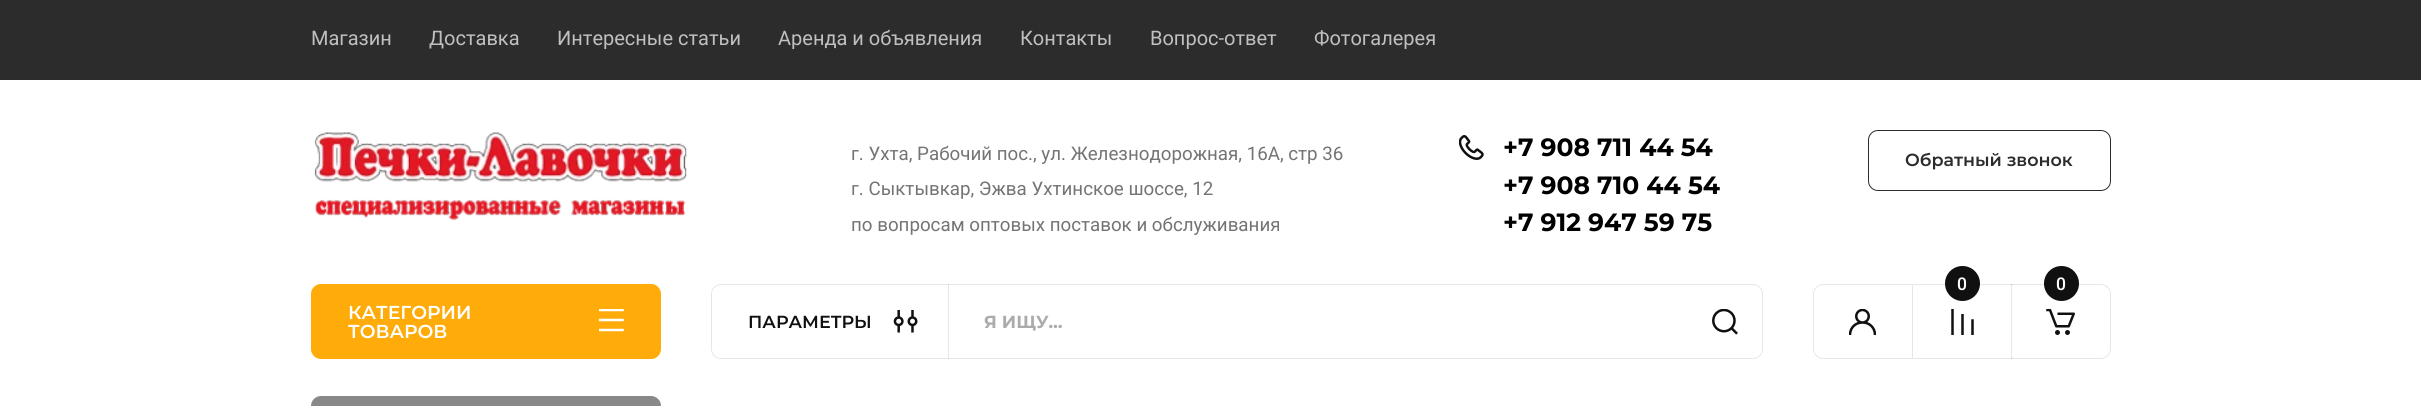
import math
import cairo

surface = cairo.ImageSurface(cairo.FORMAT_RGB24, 2421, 406)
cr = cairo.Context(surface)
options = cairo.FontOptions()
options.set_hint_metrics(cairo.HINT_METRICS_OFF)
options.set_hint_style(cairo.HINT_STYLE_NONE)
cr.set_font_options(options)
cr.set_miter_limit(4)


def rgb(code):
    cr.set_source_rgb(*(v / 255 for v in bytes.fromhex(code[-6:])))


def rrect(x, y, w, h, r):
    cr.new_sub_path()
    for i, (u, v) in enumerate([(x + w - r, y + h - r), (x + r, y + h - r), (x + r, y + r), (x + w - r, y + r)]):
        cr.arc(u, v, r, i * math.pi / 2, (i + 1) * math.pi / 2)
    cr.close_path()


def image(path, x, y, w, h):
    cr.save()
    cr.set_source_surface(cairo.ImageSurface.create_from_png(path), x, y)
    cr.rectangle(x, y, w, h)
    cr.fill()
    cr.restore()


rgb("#ffffff")
cr.paint()
rgb("#2c2c2c")
cr.rectangle(0, 0, 2421, 80)
cr.fill()
image("img/1.png", 314, 132, 373, 89)
image("img/2.png", 1459, 135, 25, 25)
rrect(1868.5, 130.5, 242, 60, 9.5)
cr.set_line_width(1)
cr.stroke()
rgb("#ffab09")
rrect(311, 284, 350, 75, 10)
cr.fill()
image("img/3.png", 599, 309, 25, 23)
rrect(711.5, 284.5, 1051, 74, 9.5)
rgb("#e7e7e7")
cr.stroke()
image("img/4.png", 893, 310, 25, 23)
cr.set_source_rgba(0.063, 0.063, 0.063, 0.1)
cr.rectangle(948, 284, 1, 75)
cr.fill()
image("img/5.png", 1712, 309, 26, 26)
cr.new_path()
cr.move_to(1823, 284.5)
cr.line_to(1912.5, 284.5)
cr.line_to(1912.5, 358.5)
cr.line_to(1823, 358.5)
cr.curve_to(1818, 358.5, 1813.5, 354, 1813.5, 349)
cr.line_to(1813.5, 294)
cr.curve_to(1813.5, 289, 1818, 284.5, 1823, 284.5)
cr.close_path()
rgb("#e7e7e7")
cr.stroke()
image("img/6.png", 1849, 309, 27, 26)
cr.rectangle(1913, 284, 100, 1)
cr.fill()
cr.rectangle(1913, 358, 100, 1)
cr.fill()
rgb("#101010")
cr.arc(1962.5, 283.5, 17.5, 0, 2 * math.pi)
cr.fill()
image("img/7.png", 1951, 309, 23, 26)
cr.new_path()
cr.move_to(2011.5, 284.5)
cr.line_to(2101, 284.5)
cr.curve_to(2106, 284.5, 2110.5, 289, 2110.5, 294)
cr.line_to(2110.5, 349)
cr.curve_to(2110.5, 354, 2106, 358.5, 2101, 358.5)
cr.line_to(2011.5, 358.5)
cr.close_path()
cr.set_source_rgba(0.063, 0.063, 0.063, 0.1)
cr.stroke()
rgb("#101010")
cr.arc(2061.5, 283.5, 17.5, 0, 2 * math.pi)
cr.fill()
image("img/8.png", 2046, 309, 29, 26)
rgb("#888888")
rrect(311, 396, 350, 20, 10)
cr.fill()
cr.select_font_face("Roboto")
cr.set_font_size(20)
rgb("#c0c0c0")
for x, y, s in [
    (311, 45, "Магазин"),
    (429, 45, "Доставка"),
    (557, 45, "Интересные статьи"),
    (778, 45, "Аренда и объявления"),
    (1020, 45, "Контакты"),
    (1150, 45, "Вопрос-ответ"),
    (1314, 45, "Фотогалерея"),
]:
    cr.move_to(x, y)
    cr.show_text(s)
cr.set_font_size(18.75)
rgb("#747474")
for x, y, s in [
    (851, 160, "г. Ухта, Рабочий пос., ул. Железнодорожная, 16А, стр 36"),
    (851, 195, "г. Сыктывкар, Эжва Ухтинское шоссе, 12"),
    (851, 231, "по вопросам оптовых поставок и обслуживания"),
]:
    cr.move_to(x, y)
    cr.show_text(s)
cr.select_font_face("Montserrat", cairo.FONT_SLANT_NORMAL, cairo.FONT_WEIGHT_BOLD)
cr.set_font_size(25)
rgb("#000000")
for x, y, s in [
    (1503, 156, "+7 908 711 44 54"),
    (1503, 194, "+7 908 710 44 54"),
    (1503, 231, "+7 912 947 59 75"),
]:
    cr.move_to(x, y)
    cr.show_text(s)
cr.select_font_face("Montserrat SemiBold")
cr.set_font_size(17.5)
rgb("#2c2c2c")
cr.move_to(1905, 166)
cr.show_text("Обратный звонок")
cr.set_font_size(18.75)
rgb("#ffffff")
cr.move_to(348, 319)
cr.show_text("КАТЕГОРИИ")
cr.move_to(348, 338)
cr.show_text("ТОВАРОВ")
cr.set_font_size(17.5)
rgb("#101010")
cr.move_to(748, 328)
cr.show_text("ПАРАМЕТРЫ")
cr.select_font_face("Montserrat", cairo.FONT_SLANT_NORMAL, cairo.FONT_WEIGHT_BOLD)
rgb("#ababab")
cr.move_to(984, 328)
cr.show_text("Я ИЩУ…")
cr.select_font_face("Roboto Medium")
rgb("#ffffff")
cr.move_to(1957, 290)
cr.show_text("0")
cr.move_to(2056, 290)
cr.show_text("0")
surface.write_to_png("page.png")
